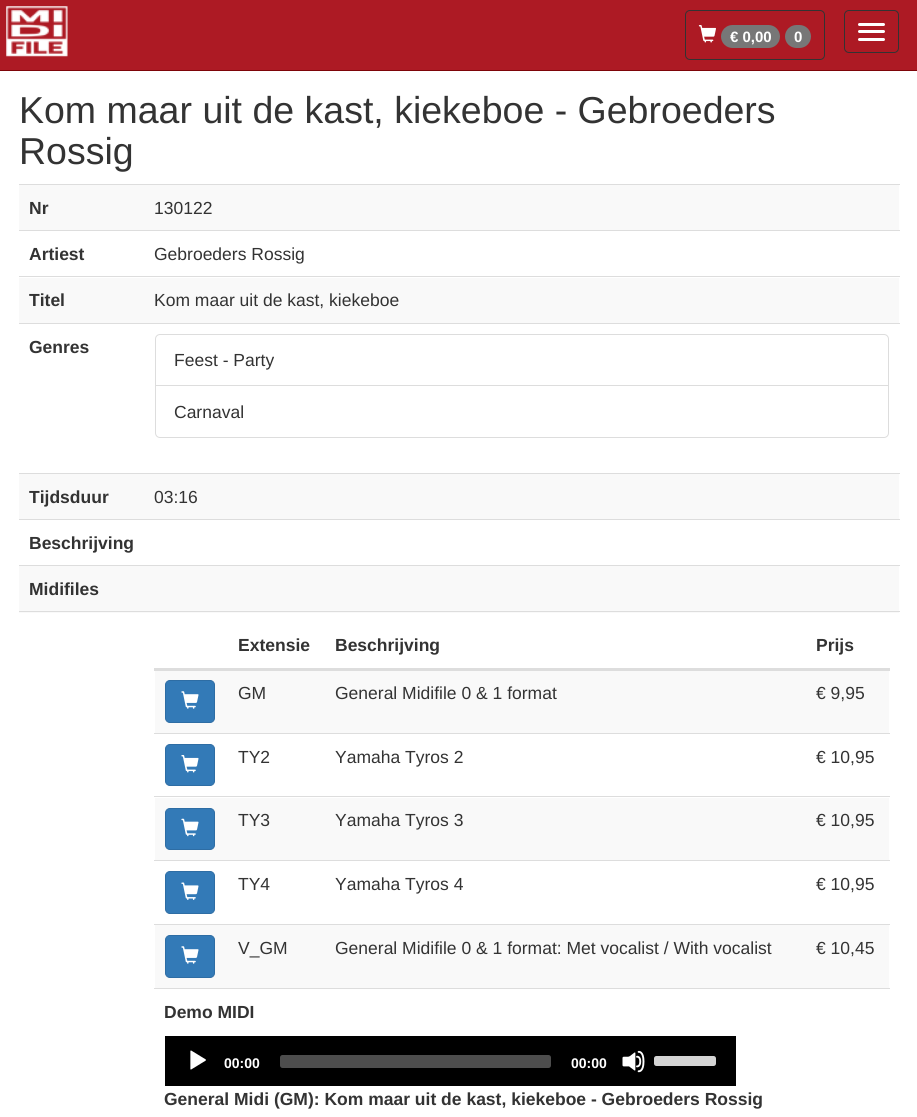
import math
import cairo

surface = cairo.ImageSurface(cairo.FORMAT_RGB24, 917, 1117)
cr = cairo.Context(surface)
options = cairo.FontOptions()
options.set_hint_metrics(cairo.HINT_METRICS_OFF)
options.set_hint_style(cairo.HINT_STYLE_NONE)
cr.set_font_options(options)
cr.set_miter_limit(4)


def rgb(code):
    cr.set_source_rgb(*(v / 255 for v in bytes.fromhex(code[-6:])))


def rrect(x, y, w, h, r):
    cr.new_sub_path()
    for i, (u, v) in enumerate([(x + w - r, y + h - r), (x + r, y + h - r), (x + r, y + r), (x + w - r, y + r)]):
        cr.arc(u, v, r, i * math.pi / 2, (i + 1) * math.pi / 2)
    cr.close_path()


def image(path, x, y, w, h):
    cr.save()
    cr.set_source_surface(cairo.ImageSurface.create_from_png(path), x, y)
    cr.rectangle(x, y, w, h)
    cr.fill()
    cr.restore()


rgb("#ffffff")
cr.paint()
rgb("#ad1a24")
cr.rectangle(0, 0, 917, 70)
cr.fill()
rgb("#7d0409")
cr.rectangle(0, 70, 917, 1)
cr.fill()
image("img/1.png", 6, 6, 62, 51)
rrect(685.5, 10.5, 139, 49, 4.5)
rgb("#333333")
cr.set_line_width(1)
cr.stroke()
image("img/2.png", 698, 25, 18, 18)
rgb("#777777")
rrect(721, 25, 59, 23, 11.5)
cr.fill()
rrect(785, 25, 26, 23, 11.5)
cr.fill()
rrect(844.5, 10.5, 54, 42, 4.5)
rgb("#333333")
cr.stroke()
rgb("#ffffff")
rrect(858, 23, 27, 3, 1.5)
cr.fill()
rrect(858, 30, 27, 3, 1.5)
cr.fill()
rrect(858, 38, 27, 3, 1.5)
cr.fill()
for x, y, w, h, color in [
    (19, 185, 880, 45, "#f9f9f9"),
    (19, 184, 881, 1, "#dddddd"),
    (19, 230, 881, 1, "#dddddd"),
    (19, 278, 880, 45, "#f9f9f9"),
    (19, 276, 881, 1, "#dddddd"),
    (19, 323, 881, 1, "#dddddd"),
]:
    rgb(color)
    cr.rectangle(x, y, w, h)
    cr.fill()
cr.new_path()
cr.move_to(160, 334.5)
cr.line_to(884, 334.5)
cr.curve_to(886.5, 334.5, 888.5, 336.5, 888.5, 339)
cr.line_to(888.5, 385.5)
cr.line_to(155.5, 385.5)
cr.line_to(155.5, 339)
cr.curve_to(155.5, 336.5, 157.5, 334.5, 160, 334.5)
cr.close_path()
cr.stroke()
rgb("#ffffff")
cr.new_path()
cr.move_to(155.5, 385.5)
cr.line_to(888.5, 385.5)
cr.line_to(888.5, 433)
cr.curve_to(888.5, 435.5, 886.5, 437.5, 884, 437.5)
cr.line_to(160, 437.5)
cr.curve_to(157.5, 437.5, 155.5, 435.5, 155.5, 433)
cr.close_path()
cr.fill_preserve()
rgb("#dddddd")
cr.stroke()
for x, y, w, h, color in [
    (19, 474, 880, 45, "#f9f9f9"),
    (19, 473, 881, 1, "#dddddd"),
    (19, 519, 881, 1, "#dddddd"),
    (19, 566, 880, 47, "#f9f9f9"),
    (19, 565, 881, 1, "#dddddd"),
    (19, 611, 881, 1, "#dddddd"),
    (154, 668, 736, 3, "#dddddd"),
    (155, 671, 734, 62, "#f9f9f9"),
]:
    rgb(color)
    cr.rectangle(x, y, w, h)
    cr.fill()
rgb("#337ab7")
rrect(165.5, 680.5, 49, 42, 4.5)
cr.fill_preserve()
rgb("#2e6da4")
cr.stroke()
image("img/3.png", 181, 691, 18, 18)
rgb("#337ab7")
rrect(165.5, 744.5, 49, 41, 4.5)
cr.fill_preserve()
rgb("#2e6da4")
cr.stroke()
image("img/4.png", 181, 755, 18, 18)
rgb("#dddddd")
cr.rectangle(154, 733, 736, 1)
cr.fill()
rgb("#f9f9f9")
cr.rectangle(155, 798, 734, 62)
cr.fill()
rgb("#337ab7")
rrect(165.5, 808.5, 49, 41, 4.5)
cr.fill_preserve()
rgb("#2e6da4")
cr.stroke()
image("img/5.png", 181, 818, 18, 19)
rgb("#dddddd")
cr.rectangle(154, 796, 736, 1)
cr.fill()
rgb("#337ab7")
rrect(165.5, 871.5, 49, 42, 4.5)
cr.fill_preserve()
rgb("#2e6da4")
cr.stroke()
image("img/6.png", 181, 882, 18, 18)
rgb("#dddddd")
cr.rectangle(154, 860, 736, 1)
cr.fill()
rgb("#f9f9f9")
cr.rectangle(155, 925, 734, 63)
cr.fill()
rgb("#337ab7")
rrect(165.5, 935.5, 49, 42, 4.5)
cr.fill_preserve()
rgb("#2e6da4")
cr.stroke()
image("img/3.png", 181, 946, 18, 18)
for x, y, w, h, color in [
    (154, 924, 736, 1, "#dddddd"),
    (154, 988, 736, 1, "#dddddd"),
    (165, 1036, 571, 50, "#000000"),
]:
    rgb(color)
    cr.rectangle(x, y, w, h)
    cr.fill()
image("img/7.png", 190, 1050, 16, 20)
rgb("#4d4d4d")
rrect(280, 1055, 271, 13, 2.5)
cr.fill()
image("img/8.png", 622, 1050, 23, 23)
rgb("#282828")
rrect(654, 1056, 62, 10, 2.5)
cr.fill()
cr.set_source_rgba(1, 1, 1, 0.8)
rrect(654, 1056, 62, 10, 2.5)
cr.fill()
cr.select_font_face("Liberation Sans", cairo.FONT_SLANT_NORMAL, cairo.FONT_WEIGHT_BOLD)
cr.set_font_size(15)
rgb("#ffffff")
cr.move_to(730, 42)
cr.show_text("€ 0,00")
cr.move_to(794, 42)
cr.show_text("0")
cr.select_font_face("Liberation Sans")
cr.set_font_size(37.5)
rgb("#333333")
cr.move_to(19, 123)
cr.show_text("Kom maar uit de kast, kiekeboe - Gebroeders")
cr.move_to(19, 164)
cr.show_text("Rossig")
cr.select_font_face("Liberation Sans", cairo.FONT_SLANT_NORMAL, cairo.FONT_WEIGHT_BOLD)
cr.set_font_size(17.5)
cr.move_to(29, 214)
cr.show_text("Nr")
cr.select_font_face("Liberation Sans")
cr.move_to(154, 214)
cr.show_text("130122")
cr.select_font_face("Liberation Sans", cairo.FONT_SLANT_NORMAL, cairo.FONT_WEIGHT_BOLD)
cr.move_to(29, 260)
cr.show_text("Artiest")
cr.select_font_face("Liberation Sans")
cr.move_to(154, 260)
cr.show_text("Gebroeders Rossig")
cr.select_font_face("Liberation Sans", cairo.FONT_SLANT_NORMAL, cairo.FONT_WEIGHT_BOLD)
cr.move_to(29, 306)
cr.show_text("Titel")
cr.select_font_face("Liberation Sans")
cr.move_to(154, 306)
cr.show_text("Kom maar uit de kast, kiekeboe")
cr.select_font_face("Liberation Sans", cairo.FONT_SLANT_NORMAL, cairo.FONT_WEIGHT_BOLD)
cr.move_to(29, 353)
cr.show_text("Genres")
cr.select_font_face("Liberation Sans")
cr.move_to(174, 366)
cr.show_text("Feest - Party")
cr.move_to(174, 418)
cr.show_text("Carnaval")
cr.select_font_face("Liberation Sans", cairo.FONT_SLANT_NORMAL, cairo.FONT_WEIGHT_BOLD)
cr.move_to(29, 503)
cr.show_text("Tijdsduur")
cr.select_font_face("Liberation Sans")
cr.move_to(154, 503)
cr.show_text("03:16")
cr.select_font_face("Liberation Sans", cairo.FONT_SLANT_NORMAL, cairo.FONT_WEIGHT_BOLD)
for x, y, s in [
    (29, 549, "Beschrijving"),
    (29, 595, "Midifiles"),
    (238, 651, "Extensie"),
    (335, 651, "Beschrijving"),
    (816, 651, "Prijs"),
]:
    cr.move_to(x, y)
    cr.show_text(s)
cr.select_font_face("Liberation Sans")
for x, y, s in [
    (238, 699, "GM"),
    (335, 699, "General Midifile 0 & 1 format"),
    (816, 699, "€ 9,95"),
    (238, 763, "TY2"),
    (335, 763, "Yamaha Tyros 2"),
    (816, 763, "€ 10,95"),
    (238, 826, "TY3"),
    (335, 826, "Yamaha Tyros 3"),
    (816, 826, "€ 10,95"),
    (238, 890, "TY4"),
    (335, 890, "Yamaha Tyros 4"),
    (816, 890, "€ 10,95"),
    (238, 954, "V_GM"),
    (335, 954, "General Midifile 0 & 1 format: Met vocalist / With vocalist"),
    (816, 954, "€ 10,45"),
]:
    cr.move_to(x, y)
    cr.show_text(s)
cr.select_font_face("Liberation Sans", cairo.FONT_SLANT_NORMAL, cairo.FONT_WEIGHT_BOLD)
cr.move_to(164, 1018)
cr.show_text("Demo MIDI")
cr.set_font_size(14)
rgb("#ffffff")
cr.move_to(224, 1068)
cr.show_text("00:00")
cr.move_to(571, 1068)
cr.show_text("00:00")
cr.set_font_size(17.5)
rgb("#333333")
cr.move_to(164, 1105)
cr.show_text("General Midi (GM): Kom maar uit de kast, kiekeboe - Gebroeders Rossig")
surface.write_to_png("page.png")
